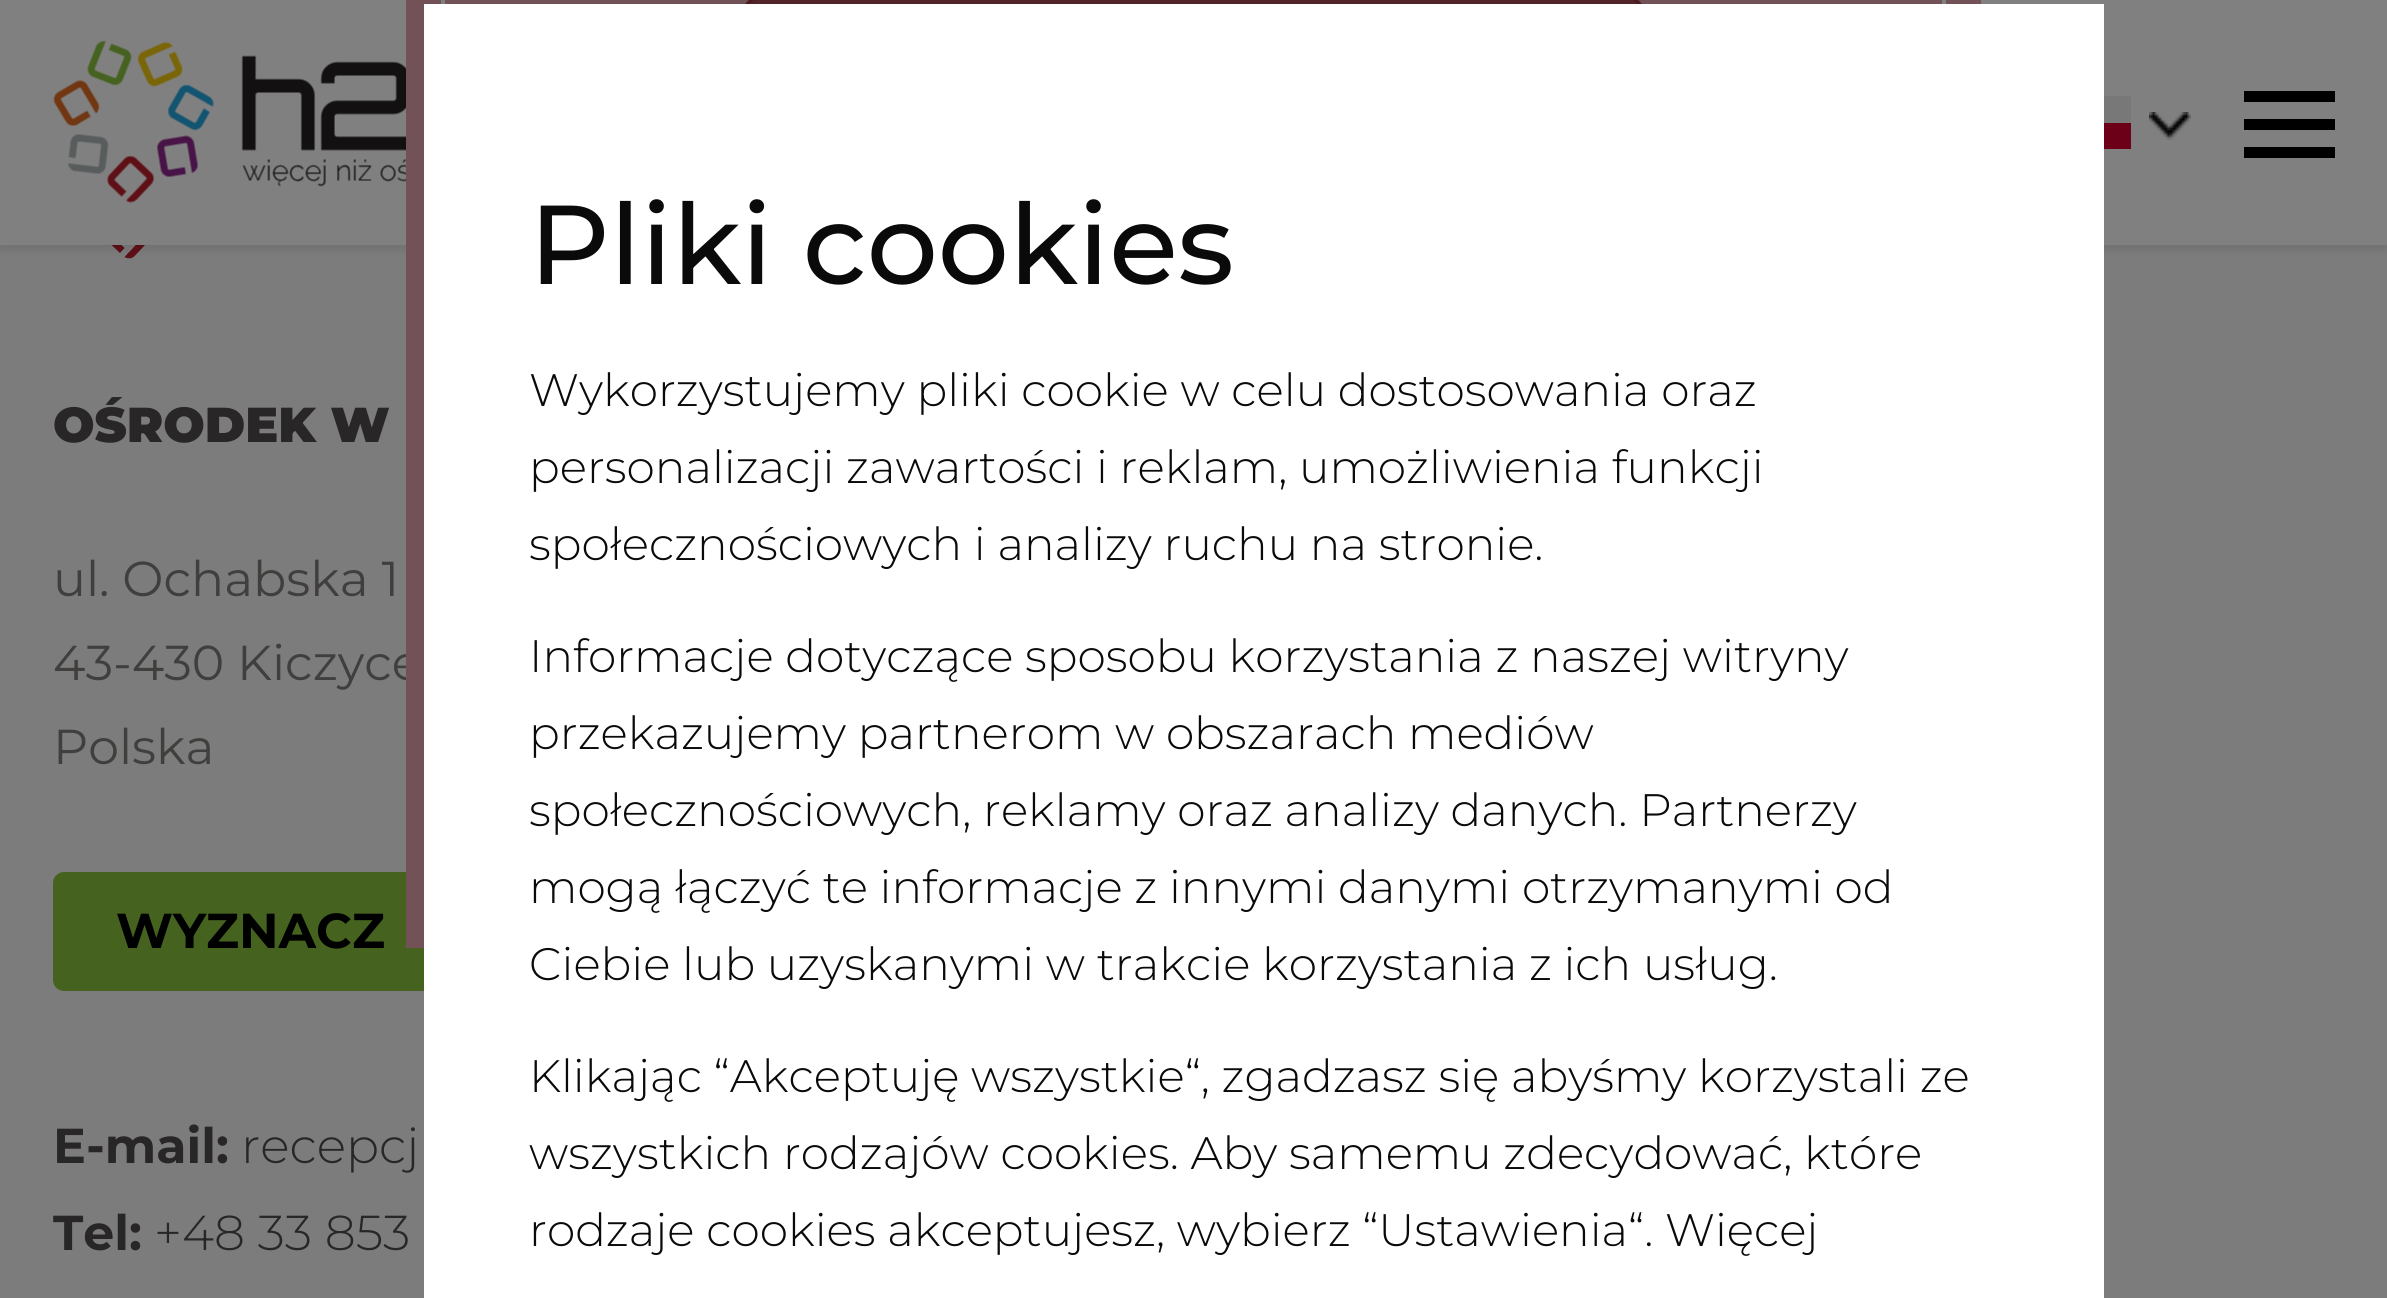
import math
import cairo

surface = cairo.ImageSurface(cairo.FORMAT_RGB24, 2387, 1298)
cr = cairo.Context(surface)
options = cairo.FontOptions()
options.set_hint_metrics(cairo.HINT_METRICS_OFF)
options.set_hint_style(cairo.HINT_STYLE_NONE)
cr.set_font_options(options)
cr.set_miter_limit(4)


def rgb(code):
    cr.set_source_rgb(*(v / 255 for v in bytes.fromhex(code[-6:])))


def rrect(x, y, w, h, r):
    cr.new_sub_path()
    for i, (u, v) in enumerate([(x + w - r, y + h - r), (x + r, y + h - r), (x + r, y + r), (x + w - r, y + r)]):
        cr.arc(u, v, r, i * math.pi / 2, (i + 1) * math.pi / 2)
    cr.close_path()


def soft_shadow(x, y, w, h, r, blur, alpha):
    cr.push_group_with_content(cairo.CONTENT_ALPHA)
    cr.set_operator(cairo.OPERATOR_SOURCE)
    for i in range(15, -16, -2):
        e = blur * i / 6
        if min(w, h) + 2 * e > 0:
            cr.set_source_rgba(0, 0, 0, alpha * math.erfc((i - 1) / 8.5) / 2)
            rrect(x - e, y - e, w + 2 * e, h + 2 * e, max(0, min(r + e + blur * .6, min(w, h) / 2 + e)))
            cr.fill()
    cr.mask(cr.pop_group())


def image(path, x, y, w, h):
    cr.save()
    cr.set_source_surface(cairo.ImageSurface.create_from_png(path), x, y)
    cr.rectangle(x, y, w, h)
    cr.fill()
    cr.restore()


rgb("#7c7c7c")
cr.paint()
image("img/4.png", 111, 245, 34, 14)
rgb("#000000")
soft_shadow(0, 4, 2387, 245, 0, 5, 0.11)
rgb("#808080")
cr.rectangle(0, 0, 2387, 245)
cr.fill()
image("img/2.png", 53, 40, 353, 163)
rgb("#787878")
cr.rectangle(2104, 96, 27, 27)
cr.fill()
rgb("#6c0019")
cr.rectangle(2104, 123, 27, 26)
cr.fill()
image("img/3.png", 2149, 112, 42, 28)
for x, y, w, h, color in [
    (2244, 91, 91, 11, "#000000"),
    (2244, 119, 91, 11, "#000000"),
    (2244, 147, 91, 11, "#000000"),
]:
    rgb(color)
    cr.rectangle(x, y, w, h)
    cr.fill()
rgb("#45631f")
rrect(53, 872, 686, 119, 11)
cr.fill()
cr.select_font_face("Montserrat Black")
cr.set_font_size(49)
rgb("#282626")
cr.move_to(53, 442)
cr.show_text("OŚRODEK W")
cr.select_font_face("Montserrat")
rgb("#403f3d")
cr.move_to(53, 596)
cr.show_text("ul. Ochabska 1")
cr.move_to(53, 680)
cr.show_text("43-430 Kiczyce")
image("img/1.png", 406, 0, 1575, 948)
cr.rectangle(443, -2, 1501, 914)
rgb("#808080")
cr.set_line_width(4)
cr.stroke()
rgb("#403f3d")
cr.move_to(53, 764)
cr.show_text("Polska")
cr.select_font_face("Montserrat", cairo.FONT_SLANT_NORMAL, cairo.FONT_WEIGHT_BOLD)
rgb("#000000")
cr.move_to(116, 948)
cr.show_text("WYZNACZ")
rgb("#282626")
cr.move_to(53, 1163)
cr.show_text("E-mail:")
cr.select_font_face("Montserrat Light")
cr.move_to(241, 1163)
cr.show_text("recepcj")
cr.select_font_face("Montserrat", cairo.FONT_SLANT_NORMAL, cairo.FONT_WEIGHT_BOLD)
cr.move_to(53, 1250)
cr.show_text("Tel:")
cr.select_font_face("Montserrat Light")
cr.move_to(154, 1250)
cr.show_text("+48 33 853")
rgb("#ffffff")
cr.rectangle(424, 4, 1680, 1294)
cr.fill()
cr.select_font_face("Montserrat Medium")
cr.set_font_size(112)
rgb("#0a0a0a")
cr.move_to(529, 284)
cr.show_text("Pliki cookies")
cr.select_font_face("Montserrat Light")
cr.set_font_size(45.5)
for x, y, s in [
    (529, 406, "Wykorzystujemy pliki cookie w celu dostosowania oraz"),
    (529, 483, "personalizacji zawartości i reklam, umożliwienia funkcji"),
    (529, 560, "społecznościowych i analizy ruchu na stronie."),
    (529, 672, "Informacje dotyczące sposobu korzystania z naszej witryny"),
    (529, 749, "przekazujemy partnerom w obszarach mediów"),
    (529, 826, "społecznościowych, reklamy oraz analizy danych. Partnerzy"),
    (529, 903, "mogą łączyć te informacje z innymi danymi otrzymanymi od"),
    (529, 980, "Ciebie lub uzyskanymi w trakcie korzystania z ich usług."),
    (529, 1092, "Klikając “Akceptuję wszystkie“, zgadzasz się abyśmy korzystali ze"),
    (529, 1169, "wszystkich rodzajów cookies. Aby samemu zdecydować, które"),
    (529, 1246, "rodzaje cookies akceptujesz, wybierz “Ustawienia“. Więcej"),
]:
    cr.move_to(x, y)
    cr.show_text(s)
surface.write_to_png("page.png")
